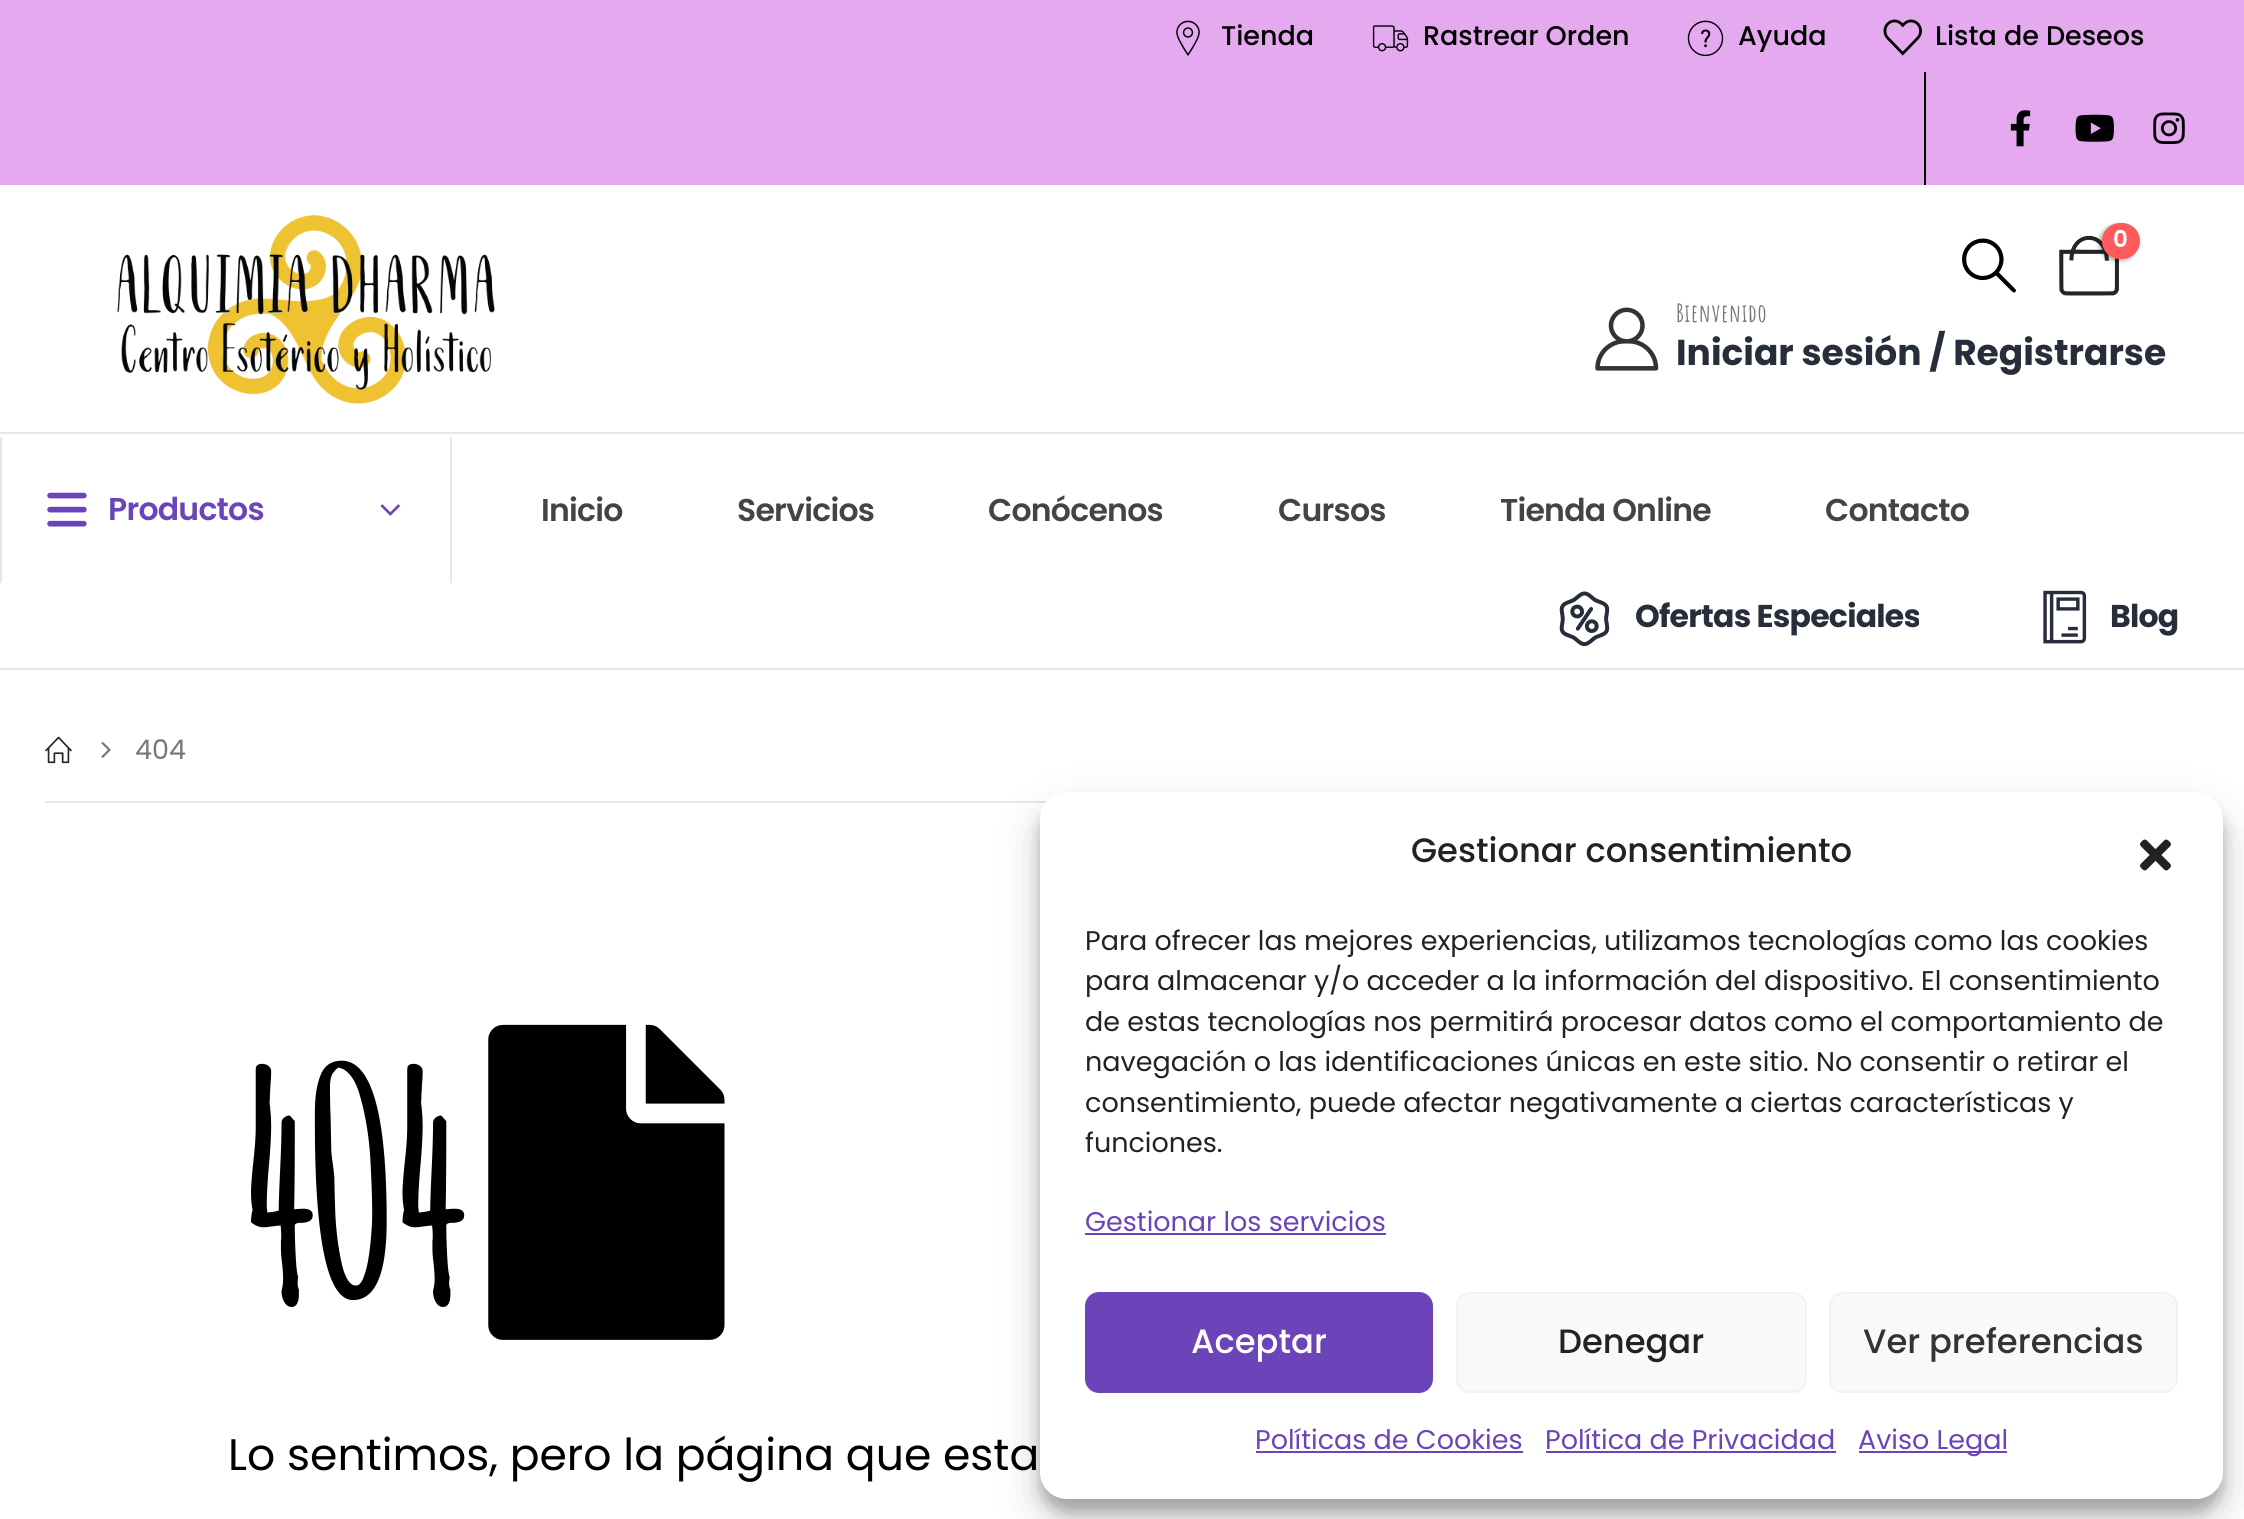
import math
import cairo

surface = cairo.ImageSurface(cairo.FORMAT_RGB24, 2244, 1519)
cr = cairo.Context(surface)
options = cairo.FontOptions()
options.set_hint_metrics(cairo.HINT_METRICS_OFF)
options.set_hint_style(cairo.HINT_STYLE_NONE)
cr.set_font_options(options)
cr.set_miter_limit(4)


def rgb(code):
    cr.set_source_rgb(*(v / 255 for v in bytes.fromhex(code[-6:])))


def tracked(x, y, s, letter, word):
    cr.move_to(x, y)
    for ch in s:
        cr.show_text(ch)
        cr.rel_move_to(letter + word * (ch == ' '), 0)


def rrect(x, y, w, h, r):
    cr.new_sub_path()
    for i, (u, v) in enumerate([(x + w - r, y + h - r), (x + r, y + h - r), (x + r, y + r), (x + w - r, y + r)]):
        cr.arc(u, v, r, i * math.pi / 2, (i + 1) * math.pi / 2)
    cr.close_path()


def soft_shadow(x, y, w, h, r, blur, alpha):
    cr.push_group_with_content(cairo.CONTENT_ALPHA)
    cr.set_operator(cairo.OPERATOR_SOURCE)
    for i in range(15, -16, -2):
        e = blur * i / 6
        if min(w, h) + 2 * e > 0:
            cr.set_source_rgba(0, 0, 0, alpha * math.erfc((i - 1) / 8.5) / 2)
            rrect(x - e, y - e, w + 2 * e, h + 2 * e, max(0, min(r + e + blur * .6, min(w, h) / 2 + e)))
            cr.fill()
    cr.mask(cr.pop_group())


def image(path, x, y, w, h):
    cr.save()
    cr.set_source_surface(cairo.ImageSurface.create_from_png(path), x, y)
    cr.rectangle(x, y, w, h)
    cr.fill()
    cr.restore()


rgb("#ffffff")
cr.paint()
rgb("#e5a9f0")
cr.rectangle(0, 0, 2244, 185)
cr.fill()
image("img/1.png", 1176, 20, 24, 36)
image("img/2.png", 1372, 25, 37, 27)
image("img/3.png", 1687, 20, 37, 37)
image("img/4.png", 1883, 19, 39, 37)
rgb("#000000")
cr.rectangle(1924, 72, 2, 113)
cr.fill()
image("img/5.png", 2010, 110, 21, 37)
image("img/6.png", 2075, 114, 39, 28)
image("img/7.png", 2153, 112, 32, 32)
rgb("#e7e7e7")
cr.rectangle(0, 432, 2244, 2)
cr.fill()
image("img/8.png", 117, 215, 378, 189)
image("img/9.png", 1962, 238, 54, 55)
image("img/10.png", 2059, 235, 60, 61)
rgb("#000000")
soft_shadow(2099, 225, 39, 36, 18, 2, 0.3)
rgb("#ff5b5b")
rrect(2102, 223, 38, 36, 18)
cr.fill()
image("img/11.png", 1595, 307, 64, 64)
rgb("#e7e7e7")
cr.rectangle(450, 437, 2, 146)
cr.fill()
cr.rectangle(0, 437, 2, 146)
cr.fill()
image("img/12.png", 47, 492, 40, 35)
image("img/13.png", 380, 504, 20, 12)
image("img/14.png", 1559, 591, 51, 56)
image("img/15.png", 2043, 590, 44, 54)
cr.rectangle(0, 668, 2244, 2)
cr.fill()
image("img/16.png", 45, 736, 27, 28)
image("img/17.png", 101, 741, 10, 17)
cr.rectangle(45, 801, 1002, 2)
cr.fill()
image("img/18.png", 488, 1024, 237, 316)
rgb("#000000")
soft_shadow(1040, 806, 1183, 706, 27, 7, 0.23)
soft_shadow(1040, 815, 1183, 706, 27, 22.5, 0.19)
rgb("#ffffff")
rrect(1040, 792, 1183, 707, 27)
cr.fill()
image("img/19.png", 2140, 839, 31, 32)
rgb("#6a44b8")
cr.rectangle(1085, 1233, 301, 2)
cr.fill()
rrect(1086, 1293, 346, 99, 13)
cr.fill_preserve()
cr.stroke()
rgb("#f9f9f9")
rrect(1457, 1293, 349, 99, 13)
cr.fill_preserve()
rgb("#f2f2f2")
cr.stroke()
rgb("#f9f9f9")
rrect(1830, 1293, 347, 99, 13)
cr.fill_preserve()
rgb("#f2f2f2")
cr.stroke()
for x, y, w, h, color in [
    (1256, 1451, 267, 2, "#6a44b8"),
    (1546, 1451, 290, 2, "#6a44b8"),
    (1859, 1451, 148, 2, "#6a44b8"),
]:
    rgb(color)
    cr.rectangle(x, y, w, h)
    cr.fill()
cr.select_font_face("Poppins Medium")
cr.set_font_size(27)
rgb("#000000")
for x, y, s in [
    (1221, 45, "Tienda"),
    (1423, 45, "Rastrear Orden"),
    (1738, 45, "Ayuda"),
    (1935, 45, "Lista de Deseos"),
]:
    cr.move_to(x, y)
    cr.show_text(s)
cr.select_font_face("Poppins SemiBold")
cr.set_font_size(23)
rgb("#ffffff")
cr.move_to(2113, 247)
cr.show_text("0")
cr.select_font_face("Amatic SC", cairo.FONT_SLANT_NORMAL, cairo.FONT_WEIGHT_BOLD)
cr.set_font_size(25)
rgb("#777777")
tracked(1676, 322, "Bienvenido", 0.75, 0)
cr.select_font_face("Poppins", cairo.FONT_SLANT_NORMAL, cairo.FONT_WEIGHT_BOLD)
cr.set_font_size(36)
rgb("#282d3b")
cr.move_to(1676, 365)
cr.show_text("Iniciar sesión / Registrarse")
cr.select_font_face("Poppins SemiBold")
cr.set_font_size(31.5)
rgb("#6a44b8")
tracked(108, 520, "Productos", -0.75, 0)
rgb("#444444")
for x, y, s in [
    (541, 521, "Inicio"),
    (737, 521, "Servicios"),
    (988, 521, "Conócenos"),
    (1278, 521, "Cursos"),
    (1500, 521, "Tienda Online"),
    (1825, 521, "Contacto"),
]:
    tracked(x, y, s, -0.75, 0)
cr.save()
cr.rectangle(1544, 583, 375, 65)
cr.clip()
cr.select_font_face("Poppins", cairo.FONT_SLANT_NORMAL, cairo.FONT_WEIGHT_BOLD)
rgb("#282d3b")
tracked(1635, 627, "Ofertas Especiales", -0.75, 0)
cr.restore()
cr.select_font_face("Poppins", cairo.FONT_SLANT_NORMAL, cairo.FONT_WEIGHT_BOLD)
rgb("#282d3b")
tracked(2110, 627, "Blog", -0.75, 0)
cr.select_font_face("Poppins")
cr.set_font_size(27)
rgb("#777777")
cr.move_to(135, 759)
cr.show_text("404")
cr.select_font_face("Amatic SC", cairo.FONT_SLANT_NORMAL, cairo.FONT_WEIGHT_BOLD)
cr.set_font_size(315)
rgb("#000000")
tracked(228, 1301, "404", -22.5, 0)
cr.select_font_face("Poppins")
cr.set_font_size(44.1)
cr.move_to(228, 1470)
cr.show_text("Lo sentimos, pero la página que esta")
cr.select_font_face("Poppins Medium")
cr.set_font_size(33.75)
rgb("#222222")
cr.move_to(1411, 862)
cr.show_text("Gestionar consentimiento")
cr.select_font_face("Poppins")
cr.set_font_size(27)
for x, y, s in [
    (1085, 950, "Para ofrecer las mejores experiencias, utilizamos tecnologías como las cookies"),
    (1085, 990, "para almacenar y/o acceder a la información del dispositivo. El consentimiento"),
    (1085, 1031, "de estas tecnologías nos permitirá procesar datos como el comportamiento de"),
    (1085, 1071, "navegación o las identificaciones únicas en este sitio. No consentir o retirar el"),
    (1085, 1112, "consentimiento, puede afectar negativamente a ciertas características y"),
    (1085, 1152, "funciones."),
]:
    cr.move_to(x, y)
    cr.show_text(s)
rgb("#6a44b8")
cr.move_to(1085, 1231)
cr.show_text("Gestionar los servicios")
cr.select_font_face("Poppins Medium")
cr.set_font_size(33.75)
rgb("#ffffff")
cr.move_to(1191, 1353)
cr.show_text("Aceptar")
rgb("#222222")
cr.move_to(1558, 1353)
cr.show_text("Denegar")
rgb("#333333")
cr.move_to(1863, 1353)
cr.show_text("Ver preferencias")
cr.select_font_face("Poppins")
cr.set_font_size(27)
rgb("#6a44b8")
for x, y, s in [
    (1255, 1449, "Políticas de Cookies"),
    (1545, 1449, "Política de Privacidad"),
    (1858, 1449, "Aviso Legal"),
]:
    cr.move_to(x, y)
    cr.show_text(s)
surface.write_to_png("page.png")
